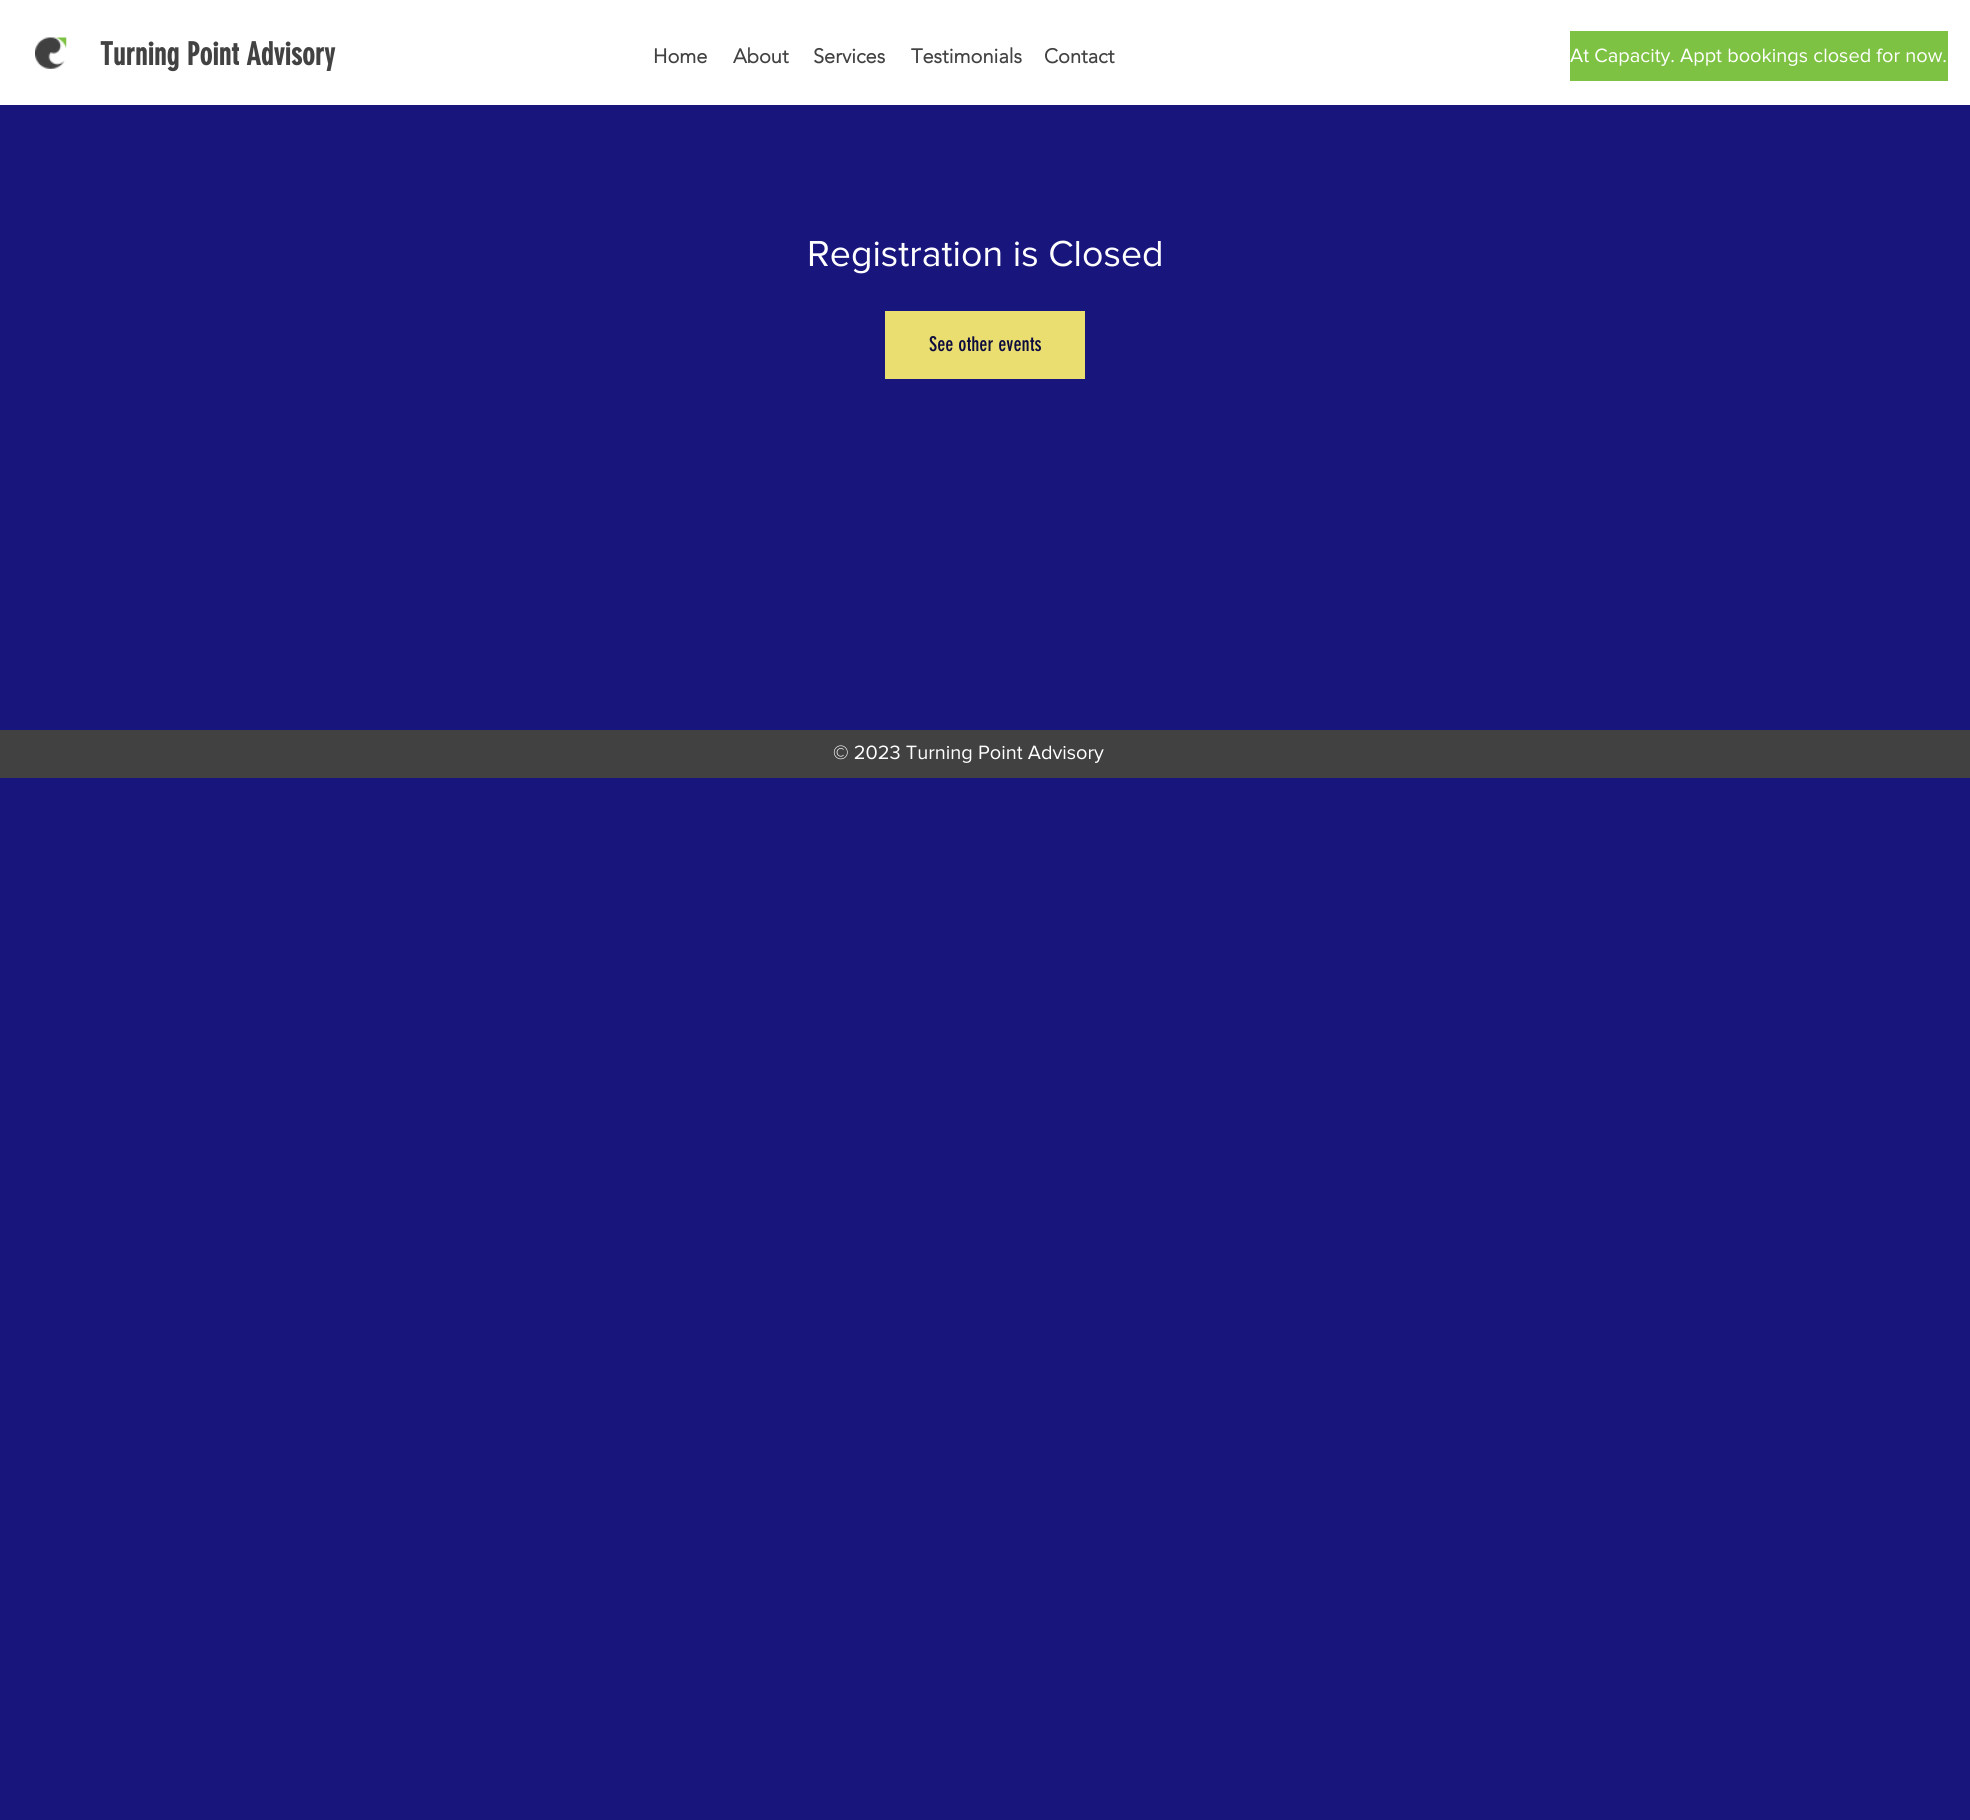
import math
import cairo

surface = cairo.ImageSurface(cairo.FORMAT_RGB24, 1970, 1820)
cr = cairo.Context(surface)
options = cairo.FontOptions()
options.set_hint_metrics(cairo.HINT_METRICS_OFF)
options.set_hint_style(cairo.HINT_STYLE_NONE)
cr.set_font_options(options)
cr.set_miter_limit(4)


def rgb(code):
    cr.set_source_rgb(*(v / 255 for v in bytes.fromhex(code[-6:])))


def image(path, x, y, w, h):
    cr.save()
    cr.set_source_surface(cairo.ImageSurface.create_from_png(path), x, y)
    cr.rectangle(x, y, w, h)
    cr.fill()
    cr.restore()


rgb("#18157c")
cr.paint()
rgb("#ffffff")
cr.rectangle(0, 0, 1970, 105)
cr.fill()
image("img/1.png", 35, 37, 32, 32)
for x, y, w, h, color in [
    (1570, 31, 378, 50, "#7dc242"),
    (885, 311, 200, 68, "#eade71"),
    (0, 730, 1970, 48, "#414141"),
]:
    rgb(color)
    cr.rectangle(x, y, w, h)
    cr.fill()
cr.select_font_face("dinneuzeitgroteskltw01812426", cairo.FONT_SLANT_NORMAL, cairo.FONT_WEIGHT_BOLD)
cr.set_font_size(31.25)
rgb("#424242")
cr.move_to(100, 65)
cr.show_text("Turning Point Advisory")
cr.select_font_face("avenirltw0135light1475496", cairo.FONT_SLANT_NORMAL, cairo.FONT_WEIGHT_BOLD)
cr.set_font_size(20)
for x, y, s in [
    (653, 63, "Home"),
    (733, 63, "About"),
    (813, 63, "Services"),
    (911, 63, "Testimonials"),
    (1044, 63, "Contact"),
]:
    cr.move_to(x, y)
    cr.show_text(s)
cr.select_font_face("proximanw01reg")
rgb("#ffffff")
cr.move_to(1570, 62)
cr.show_text("At Capacity. Appt bookings closed for now.")
cr.set_font_size(37.5)
cr.move_to(807, 266)
cr.show_text("Registration is Closed")
cr.select_font_face("dinneuzeitgroteskltw01812426")
cr.set_font_size(20)
rgb("#0c0b3e")
cr.move_to(929, 351)
cr.show_text("See other events")
cr.select_font_face("proximanw01reg")
rgb("#ffffff")
cr.move_to(833, 759)
cr.show_text("© 2023 Turning Point Advisory")
surface.write_to_png("page.png")
